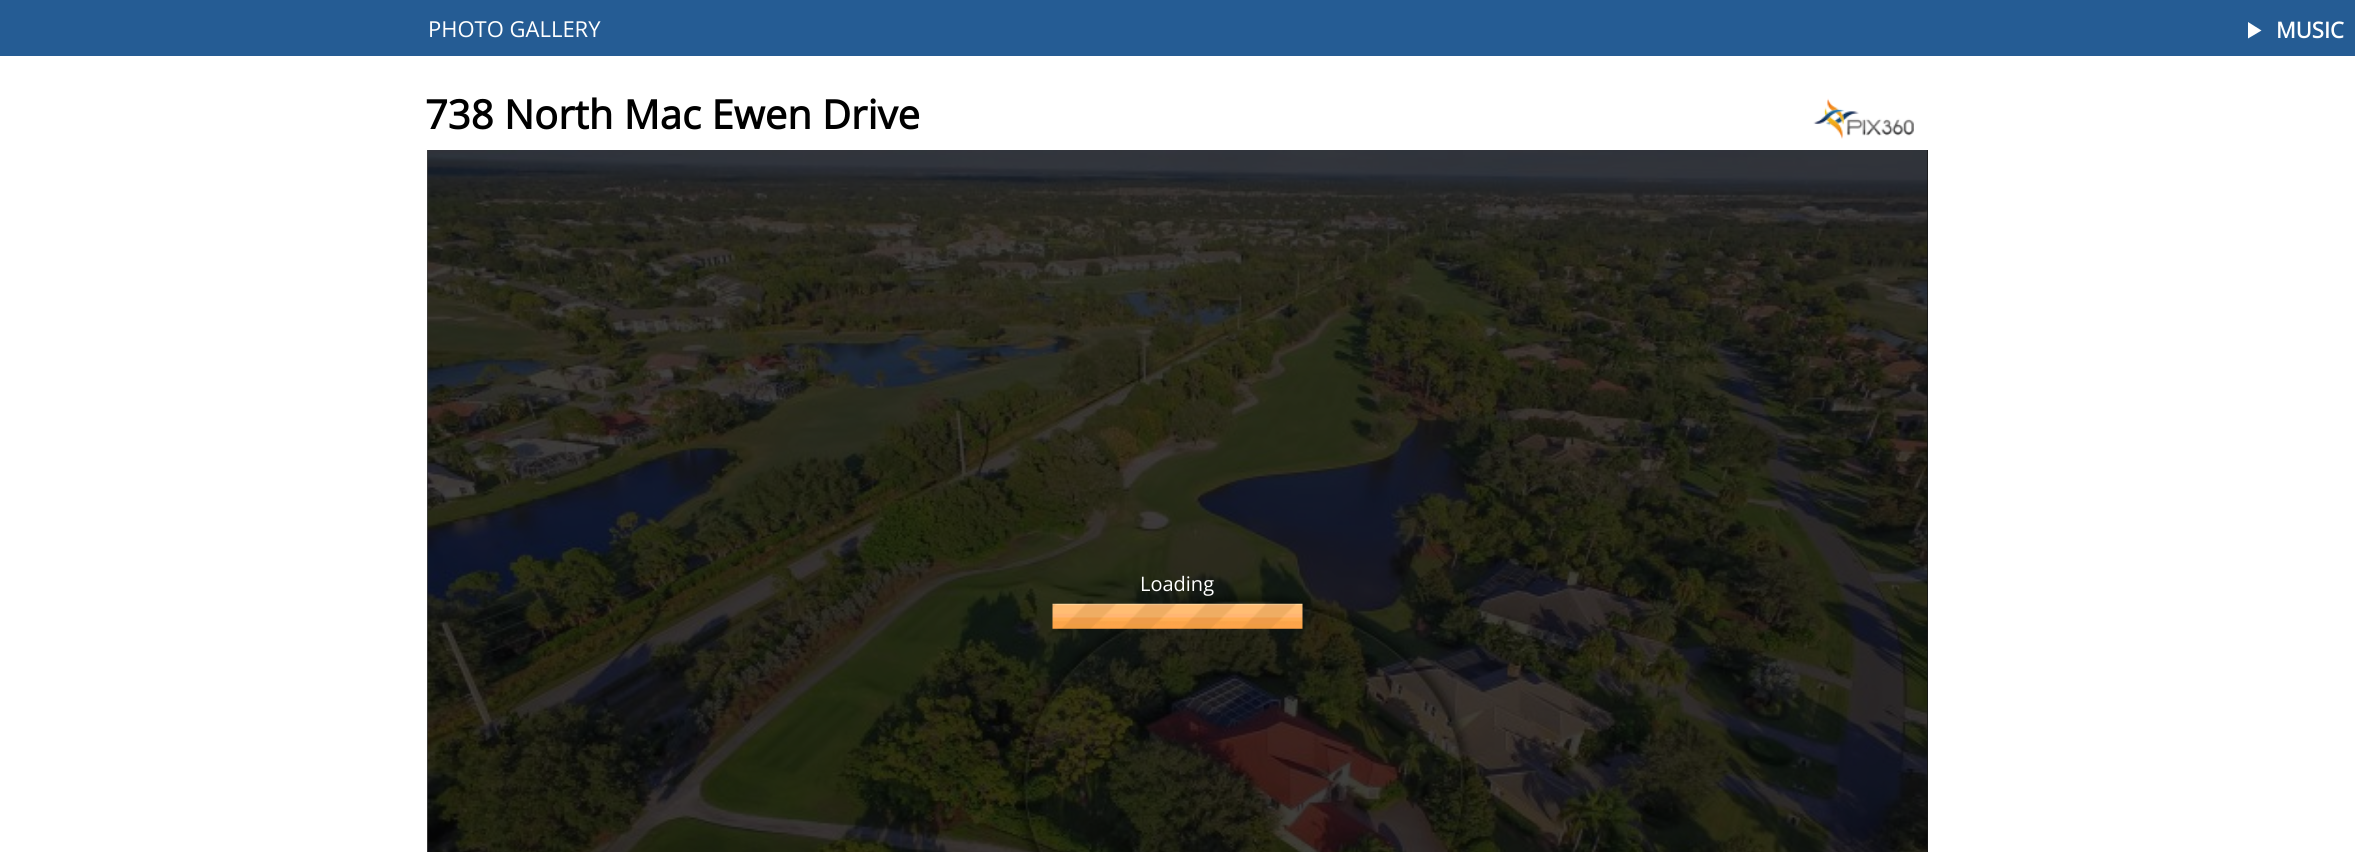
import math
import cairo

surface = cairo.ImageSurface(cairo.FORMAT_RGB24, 2355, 852)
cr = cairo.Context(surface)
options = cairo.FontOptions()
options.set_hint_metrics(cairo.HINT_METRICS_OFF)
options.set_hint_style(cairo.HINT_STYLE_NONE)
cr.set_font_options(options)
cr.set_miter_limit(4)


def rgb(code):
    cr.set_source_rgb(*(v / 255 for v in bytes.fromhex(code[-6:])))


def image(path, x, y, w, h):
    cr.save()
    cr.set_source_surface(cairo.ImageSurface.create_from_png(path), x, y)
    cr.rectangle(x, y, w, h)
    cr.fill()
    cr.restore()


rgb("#ffffff")
cr.paint()
rgb("#404040")
cr.rectangle(427, 150, 1, 702)
cr.fill()
rgb("#255c94")
cr.rectangle(0, 0, 2355, 56)
cr.fill()
rgb("#ffffff")
cr.new_path()
cr.move_to(2248, 22)
cr.line_to(2261.5, 30.5)
cr.line_to(2248, 38.5)
cr.close_path()
cr.fill()
image("img/1.png", 1813, 98, 101, 41)
rgb("#151515")
cr.rectangle(1927, 150, 1, 702)
cr.fill()
image("img/2.png", 427, 150, 1501, 702)
image("img/3.png", 1052, 603, 251, 26)
cr.select_font_face("Open Sans")
cr.set_font_size(22)
rgb("#ffffff")
cr.move_to(428, 37)
cr.show_text("PHOTO GALLERY")
cr.select_font_face("Open Sans", cairo.FONT_SLANT_NORMAL, cairo.FONT_WEIGHT_BOLD)
cr.move_to(2276, 38)
cr.show_text("MUSIC")
cr.set_font_size(40)
rgb("#000000")
cr.move_to(425, 129)
cr.show_text("738 North Mac Ewen Drive")
cr.select_font_face("Open Sans")
cr.set_font_size(20)
rgb("#ffffff")
cr.move_to(1140, 591)
cr.show_text("Loading")
surface.write_to_png("page.png")
